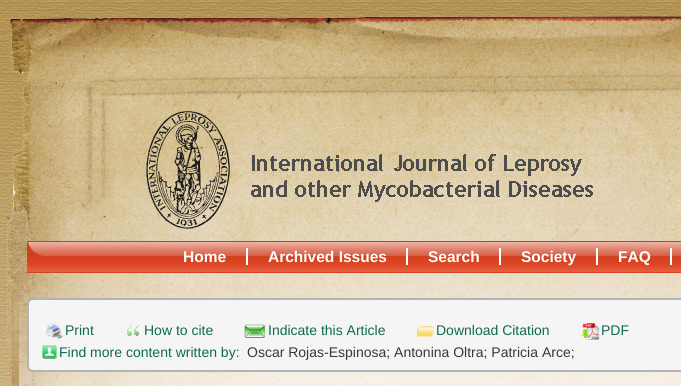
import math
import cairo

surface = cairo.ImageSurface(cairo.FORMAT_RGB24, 681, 386)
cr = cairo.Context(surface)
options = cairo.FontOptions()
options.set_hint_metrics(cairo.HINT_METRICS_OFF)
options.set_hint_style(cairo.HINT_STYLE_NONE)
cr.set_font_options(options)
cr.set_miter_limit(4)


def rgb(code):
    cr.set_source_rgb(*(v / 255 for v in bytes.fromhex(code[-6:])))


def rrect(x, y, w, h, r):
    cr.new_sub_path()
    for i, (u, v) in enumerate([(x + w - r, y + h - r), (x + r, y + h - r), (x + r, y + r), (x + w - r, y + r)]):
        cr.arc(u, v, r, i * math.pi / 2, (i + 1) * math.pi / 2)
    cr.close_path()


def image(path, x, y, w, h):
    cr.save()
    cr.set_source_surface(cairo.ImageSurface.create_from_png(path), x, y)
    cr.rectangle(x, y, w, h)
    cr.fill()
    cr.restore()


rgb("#ffffff")
cr.paint()
image("img/1.png", 0, 0, 681, 386)
for x, y, w, h, color in [
    (246, 248, 2, 17, "#ffffff"),
    (406, 248, 2, 17, "#ffffff"),
    (499, 248, 2, 17, "#ffffff"),
    (596, 248, 2, 17, "#ffffff"),
    (670, 248, 2, 17, "#ffffff"),
]:
    rgb(color)
    cr.rectangle(x, y, w, h)
    cr.fill()
image("img/2.png", 19, 273, 662, 113)
rgb("#f5f5f5")
rrect(28, 299, 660, 72, 5)
cr.fill_preserve()
rgb("#b3b3b3")
cr.stroke()
image("img/3.png", 46, 323, 17, 16)
image("img/4.png", 127, 325, 12, 11)
image("img/5.png", 244, 324, 21, 14)
image("img/6.png", 417, 325, 17, 12)
image("img/7.png", 581, 323, 19, 17)
image("img/8.png", 42, 345, 15, 14)
cr.select_font_face("Liberation Sans", cairo.FONT_SLANT_NORMAL, cairo.FONT_WEIGHT_BOLD)
cr.set_font_size(15.5)
rgb("#ffffff")
for x, y, s in [
    (183, 262, "Home"),
    (268, 262, "Archived Issues"),
    (428, 262, "Search"),
    (521, 262, "Society"),
    (618, 262, "FAQ"),
]:
    cr.move_to(x, y)
    cr.show_text(s)
cr.select_font_face("Liberation Sans")
cr.set_font_size(14)
rgb("#0f6a53")
for x, y, s in [
    (65, 335, "Print"),
    (144, 335, "How to cite"),
    (268, 335, "Indicate this Article"),
    (436, 335, "Download Citation"),
    (601, 335, "PDF"),
    (59, 357, "Find more content written by:"),
]:
    cr.move_to(x, y)
    cr.show_text(s)
rgb("#383838")
cr.move_to(247, 357)
cr.show_text("Oscar Rojas-Espinosa; Antonina Oltra; Patricia Arce;")
surface.write_to_png("page.png")
